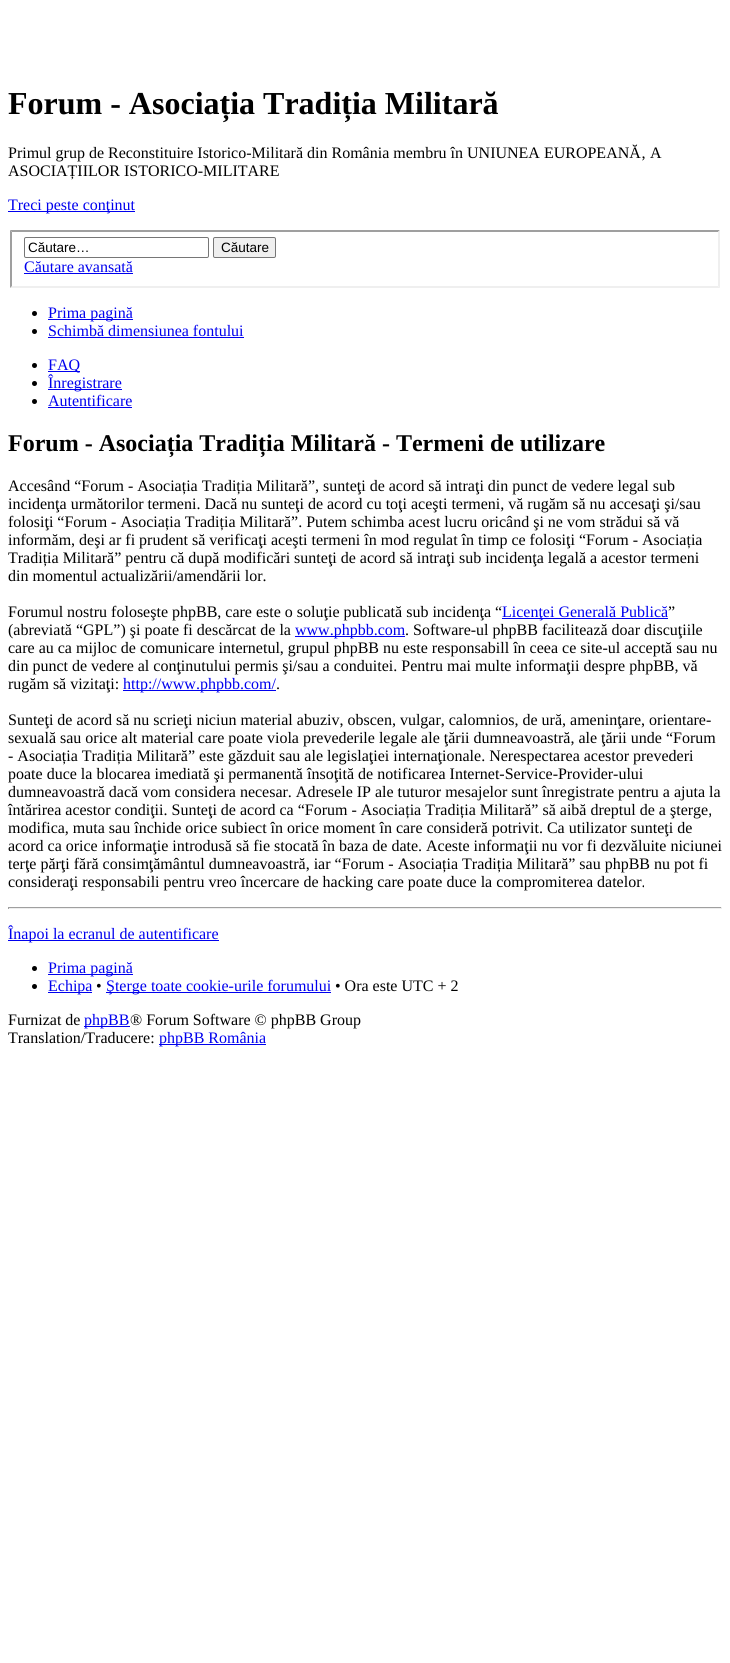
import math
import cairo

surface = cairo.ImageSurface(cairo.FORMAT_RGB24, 730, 1663)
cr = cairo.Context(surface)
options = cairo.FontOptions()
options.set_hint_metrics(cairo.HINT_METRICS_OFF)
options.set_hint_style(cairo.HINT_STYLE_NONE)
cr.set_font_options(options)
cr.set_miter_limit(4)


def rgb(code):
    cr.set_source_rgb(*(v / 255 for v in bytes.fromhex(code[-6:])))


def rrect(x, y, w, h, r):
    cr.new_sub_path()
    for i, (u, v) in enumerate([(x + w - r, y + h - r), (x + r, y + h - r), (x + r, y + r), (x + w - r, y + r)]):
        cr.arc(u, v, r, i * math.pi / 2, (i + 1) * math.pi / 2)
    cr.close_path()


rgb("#ffffff")
cr.paint()
rgb("#0000ee")
cr.rectangle(8, 211, 127, 1)
cr.fill()
rgb("#9f9f9f")
cr.new_path()
cr.move_to(10, 230)
cr.line_to(720, 230)
cr.line_to(718, 232)
cr.line_to(12, 232)
cr.close_path()
cr.fill()
rgb("#efefef")
cr.new_path()
cr.move_to(720, 230)
cr.line_to(720, 288)
cr.line_to(718, 286)
cr.line_to(718, 232)
cr.close_path()
cr.fill()
cr.new_path()
cr.move_to(720, 288)
cr.line_to(10, 288)
cr.line_to(12, 286)
cr.line_to(718, 286)
cr.close_path()
cr.fill()
rgb("#9f9f9f")
cr.new_path()
cr.move_to(10, 288)
cr.line_to(10, 230)
cr.line_to(12, 232)
cr.line_to(12, 286)
cr.close_path()
cr.fill()
rrect(24.5, 237.5, 184, 20, 1.5)
rgb("#767676")
cr.set_line_width(1)
cr.stroke()
rgb("#efefef")
rrect(213.5, 237.5, 62, 20, 1.5)
cr.fill_preserve()
rgb("#767676")
cr.stroke()
rgb("#0000ee")
cr.rectangle(24, 273, 109, 1)
cr.fill()
rgb("#000000")
cr.arc(34.5, 313.5, 2.5, 0, 2 * math.pi)
cr.fill()
rgb("#0000ee")
cr.rectangle(48, 319, 85, 1)
cr.fill()
rgb("#000000")
cr.arc(34.5, 331.5, 2.5, 0, 2 * math.pi)
cr.fill()
rgb("#0000ee")
cr.rectangle(48, 337, 196, 1)
cr.fill()
rgb("#000000")
cr.arc(34.5, 365.5, 2.5, 0, 2 * math.pi)
cr.fill()
rgb("#0000ee")
cr.rectangle(48, 371, 32, 1)
cr.fill()
rgb("#000000")
cr.arc(34.5, 383.5, 2.5, 0, 2 * math.pi)
cr.fill()
rgb("#0000ee")
cr.rectangle(48, 389, 74, 1)
cr.fill()
rgb("#000000")
cr.arc(34.5, 401.5, 2.5, 0, 2 * math.pi)
cr.fill()
for x, y, w, h, color in [
    (48, 407, 84, 1, "#0000ee"),
    (502, 618, 166, 1, "#0000ee"),
    (295, 636, 110, 1, "#0000ee"),
    (123, 690, 153, 1, "#0000ee"),
    (8, 907, 714, 1, "#9f9f9f"),
    (721, 907, 1, 2, "#eeeeee"),
    (8, 908, 714, 1, "#eeeeee"),
    (8, 907, 1, 2, "#9f9f9f"),
    (8, 940, 211, 1, "#0000ee"),
]:
    rgb(color)
    cr.rectangle(x, y, w, h)
    cr.fill()
rgb("#000000")
cr.arc(34.5, 968.5, 2.5, 0, 2 * math.pi)
cr.fill()
rgb("#0000ee")
cr.rectangle(48, 974, 85, 1)
cr.fill()
rgb("#000000")
cr.arc(34.5, 986.5, 2.5, 0, 2 * math.pi)
cr.fill()
for x, y, w, h, color in [
    (48, 992, 44, 1, "#0000ee"),
    (106, 992, 225, 1, "#0000ee"),
    (84, 1026, 46, 1, "#0000ee"),
    (159, 1044, 107, 1, "#0000ee"),
]:
    rgb(color)
    cr.rectangle(x, y, w, h)
    cr.fill()
cr.select_font_face("Liberation Serif", cairo.FONT_SLANT_NORMAL, cairo.FONT_WEIGHT_BOLD)
cr.set_font_size(32)
rgb("#000000")
cr.move_to(8, 114)
cr.show_text("Forum - Asociația Tradiția Militară")
cr.select_font_face("Liberation Serif")
cr.set_font_size(16)
cr.move_to(8, 158)
cr.show_text("Primul grup de Reconstituire Istorico-Militară din România membru în UNIUNEA EUROPEANĂ‚ A")
cr.move_to(8, 176)
cr.show_text("ASOCIAȚIILOR ISTORICO-MILITARE")
rgb("#0000ee")
cr.move_to(8, 210)
cr.show_text("Treci peste conţinut")
cr.select_font_face("Liberation Sans")
cr.set_font_size(13.5)
rgb("#000000")
cr.move_to(28, 252)
cr.show_text("Căutare…")
cr.move_to(221, 252)
cr.show_text("Căutare")
cr.select_font_face("Liberation Serif")
cr.set_font_size(16)
rgb("#0000ee")
for x, y, s in [
    (24, 272, "Căutare avansată"),
    (48, 318, "Prima pagină"),
    (48, 336, "Schimbă dimensiunea fontului"),
    (48, 370, "FAQ"),
    (48, 388, "Înregistrare"),
    (48, 406, "Autentificare"),
]:
    cr.move_to(x, y)
    cr.show_text(s)
cr.select_font_face("Liberation Serif", cairo.FONT_SLANT_NORMAL, cairo.FONT_WEIGHT_BOLD)
cr.set_font_size(24)
rgb("#000000")
cr.move_to(8, 451)
cr.show_text("Forum - Asociația Tradiția Militară - Termeni de utilizare")
cr.select_font_face("Liberation Serif")
cr.set_font_size(16)
for x, y, s in [
    (8, 491, "Accesând “Forum - Asociația Tradiția Militară”, sunteţi de acord să intraţi din punct de vedere legal sub"),
    (8, 509, "incidenţa următorilor termeni. Dacă nu sunteţi de acord cu toţi aceşti termeni, vă rugăm să nu accesaţi şi/sau"),
    (8, 527, "folosiţi “Forum - Asociația Tradiția Militară”. Putem schimba acest lucru oricând şi ne vom strădui să vă"),
    (8, 545, "informăm, deşi ar fi prudent să verificaţi aceşti termeni în mod regulat în timp ce folosiţi “Forum - Asociația"),
    (8, 563, "Tradiția Militară” pentru că după modificări sunteţi de acord să intraţi sub incidenţa legală a acestor termeni"),
    (8, 581, "din momentul actualizării/amendării lor."),
    (8, 617, "Forumul nostru foloseşte phpBB, care este o soluţie publicată sub incidenţa “"),
]:
    cr.move_to(x, y)
    cr.show_text(s)
rgb("#0000ee")
cr.move_to(502, 617)
cr.show_text("Licenţei Generală Publică")
rgb("#000000")
cr.move_to(668, 617)
cr.show_text("”")
cr.move_to(8, 635)
cr.show_text("(abreviată “GPL”) şi poate fi descărcat de la")
rgb("#0000ee")
cr.move_to(295, 635)
cr.show_text("www.phpbb.com")
rgb("#000000")
for x, y, s in [
    (405, 635, ". Software-ul phpBB facilitează doar discuţiile"),
    (8, 653, "care au ca mijloc de comunicare internetul, grupul phpBB nu este responsabill în ceea ce site-ul acceptă sau nu"),
    (8, 671, "din punct de vedere al conţinutului permis şi/sau a conduitei. Pentru mai multe informaţii despre phpBB, vă"),
    (8, 689, "rugăm să vizitaţi:"),
]:
    cr.move_to(x, y)
    cr.show_text(s)
rgb("#0000ee")
cr.move_to(123, 689)
cr.show_text("http://www.phpbb.com/")
rgb("#000000")
for x, y, s in [
    (276, 689, "."),
    (8, 725, "Sunteţi de acord să nu scrieţi niciun material abuziv, obscen, vulgar, calomnios, de ură, ameninţare, orientare-"),
    (8, 743, "sexuală sau orice alt material care poate viola prevederile legale ale ţării dumneavoastră, ale ţării unde “Forum"),
    (8, 761, "- Asociația Tradiția Militară” este găzduit sau ale legislaţiei internaţionale. Nerespectarea acestor prevederi"),
    (8, 779, "poate duce la blocarea imediată şi permanentă însoţită de notificarea Internet-Service-Provider-ului"),
    (8, 797, "dumneavoastră dacă vom considera necesar. Adresele IP ale tuturor mesajelor sunt înregistrate pentru a ajuta la"),
    (8, 815, "întărirea acestor condiţii. Sunteţi de acord ca “Forum - Asociația Tradiția Militară” să aibă dreptul de a şterge,"),
    (8, 833, "modifica, muta sau închide orice subiect în orice moment în care consideră potrivit. Ca utilizator sunteţi de"),
    (8, 851, "acord ca orice informaţie introdusă să fie stocată în baza de date. Aceste informaţii nu vor fi dezvăluite niciunei"),
    (8, 869, "terţe părţi fără consimţământul dumneavoastră, iar “Forum - Asociația Tradiția Militară” sau phpBB nu pot fi"),
    (8, 887, "consideraţi responsabili pentru vreo încercare de hacking care poate duce la compromiterea datelor."),
]:
    cr.move_to(x, y)
    cr.show_text(s)
rgb("#0000ee")
for x, y, s in [
    (8, 939, "Înapoi la ecranul de autentificare"),
    (48, 973, "Prima pagină"),
    (48, 991, "Echipa"),
]:
    cr.move_to(x, y)
    cr.show_text(s)
rgb("#000000")
cr.move_to(96, 991)
cr.show_text("•")
rgb("#0000ee")
cr.move_to(106, 991)
cr.show_text("Şterge toate cookie-urile forumului")
rgb("#000000")
cr.move_to(335, 991)
cr.show_text("• Ora este UTC + 2")
cr.move_to(8, 1025)
cr.show_text("Furnizat de")
rgb("#0000ee")
cr.move_to(84, 1025)
cr.show_text("phpBB")
rgb("#000000")
cr.move_to(130, 1025)
cr.show_text("® Forum Software © phpBB Group")
cr.move_to(8, 1043)
cr.show_text("Translation/Traducere:")
rgb("#0000ee")
cr.move_to(159, 1043)
cr.show_text("phpBB România")
surface.write_to_png("page.png")
